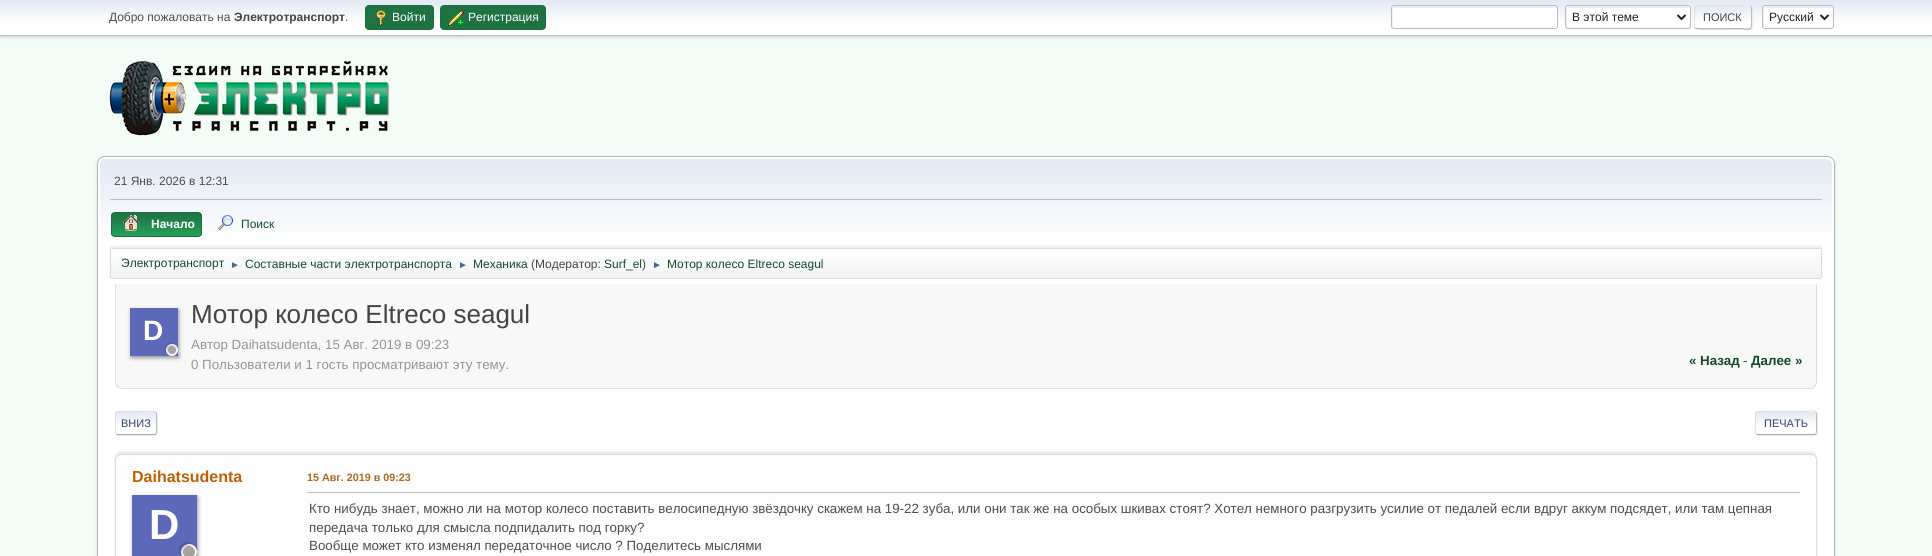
import math
import cairo

surface = cairo.ImageSurface(cairo.FORMAT_RGB24, 1932, 556)
cr = cairo.Context(surface)
options = cairo.FontOptions()
options.set_hint_metrics(cairo.HINT_METRICS_OFF)
options.set_hint_style(cairo.HINT_STYLE_NONE)
cr.set_font_options(options)
cr.set_miter_limit(4)


def rgb(code):
    cr.set_source_rgb(*(v / 255 for v in bytes.fromhex(code[-6:])))


def rrect(x, y, w, h, r):
    cr.new_sub_path()
    for i, (u, v) in enumerate([(x + w - r, y + h - r), (x + r, y + h - r), (x + r, y + r), (x + w - r, y + r)]):
        cr.arc(u, v, r, i * math.pi / 2, (i + 1) * math.pi / 2)
    cr.close_path()


def soft_shadow(x, y, w, h, r, blur, alpha):
    cr.push_group_with_content(cairo.CONTENT_ALPHA)
    cr.set_operator(cairo.OPERATOR_SOURCE)
    for i in range(15, -16, -2):
        e = blur * i / 6
        if min(w, h) + 2 * e > 0:
            cr.set_source_rgba(0, 0, 0, alpha * math.erfc((i - 1) / 8.5) / 2)
            rrect(x - e, y - e, w + 2 * e, h + 2 * e, max(0, min(r + e + blur * .6, min(w, h) / 2 + e)))
            cr.fill()
    cr.mask(cr.pop_group())


def image(path, x, y, w, h):
    cr.save()
    cr.set_source_surface(cairo.ImageSurface.create_from_png(path), x, y)
    cr.rectangle(x, y, w, h)
    cr.fill()
    cr.restore()


rgb("#f3fcf7")
cr.paint()
rgb("#000000")
soft_shadow(0, 1, 1932, 36, 0, 2, 0.16)
gradient = cairo.LinearGradient(966, 0, 966, 35)
gradient.add_color_stop_rgba(0, 0.886, 0.914, 0.953, 1)
gradient.add_color_stop_rgba(0.7, 1, 1, 1, 1)
cr.set_source(gradient)
cr.rectangle(0, 0, 1932, 35)
cr.fill()
rgb("#bbbbbb")
cr.rectangle(0, 35, 1932, 1)
cr.fill()
rgb("#1f7242")
rrect(365.5, 5.5, 68, 24, 3.5)
cr.fill_preserve()
rgb("#196f3d")
cr.set_line_width(1)
cr.stroke()
image("img/1.png", 376, 10, 10, 16)
rgb("#1f7242")
rrect(440.5, 5.5, 105, 24, 3.5)
cr.fill_preserve()
rgb("#196f3d")
cr.stroke()
image("img/2.png", 448, 10, 16, 16)
rgb("#ffffff")
rrect(1391, 5, 167, 24, 3)
cr.fill()
rgb("#ecf1f8")
cr.new_path()
cr.move_to(1395, 8)
cr.line_to(1557, 8)
cr.line_to(1557, 7)
cr.line_to(1555, 6)
cr.line_to(1394, 6)
cr.curve_to(1393, 6, 1392, 7, 1392, 8)
cr.curve_to(1392, 11, 1391, 27, 1393, 28)
cr.line_to(1393, 10)
cr.curve_to(1393, 9, 1394, 8, 1395, 8)
cr.close_path()
cr.fill()
rrect(1391.5, 5.5, 166, 23, 2.5)
rgb("#bbbbbb")
cr.stroke()
rgb("#ffffff")
rrect(1565, 5, 126, 24, 3)
cr.fill()
rgb("#ecf1f8")
cr.new_path()
cr.move_to(1569, 8)
cr.line_to(1690, 8)
cr.curve_to(1690, 7, 1689, 6, 1688, 6)
cr.line_to(1568, 6)
cr.curve_to(1567, 6, 1566, 7, 1566, 8)
cr.line_to(1566, 26)
cr.curve_to(1566, 27, 1566, 27, 1567, 28)
cr.line_to(1567, 10)
cr.curve_to(1567, 9, 1568, 8, 1569, 8)
cr.close_path()
cr.fill()
rrect(1565.5, 5.5, 125, 23, 2.5)
rgb("#bbbbbb")
cr.stroke()
cr.new_path()
cr.move_to(1677.5, 15)
cr.line_to(1681.5, 19)
cr.line_to(1685.5, 15)
rgb("#222222")
cr.set_line_width(2)
cr.stroke()
rgb("#dddddd")
soft_shadow(1695, 6, 58, 24, 3, 0.5, 0.57)
cr.save()
rrect(1694, 5, 58, 24, 3)
cr.clip()
gradient = cairo.LinearGradient(1723, -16, 1723, 6)
gradient.add_color_stop_rgba(0, 0.886, 0.914, 0.953, 1)
gradient.add_color_stop_rgba(0.7, 1, 1, 1, 1)
cr.set_source(gradient)
cr.rectangle(1694, 5, 58, 1)
cr.fill()
gradient = cairo.LinearGradient(1723, 6, 1723, 28)
gradient.add_color_stop_rgba(0, 0.886, 0.914, 0.953, 1)
gradient.add_color_stop_rgba(0.7, 1, 1, 1, 1)
cr.set_source(gradient)
cr.rectangle(1694, 6, 58, 22)
cr.fill()
gradient = cairo.LinearGradient(1723, 28, 1723, 50)
gradient.add_color_stop_rgba(0, 0.886, 0.914, 0.953, 1)
gradient.add_color_stop_rgba(0.7, 1, 1, 1, 1)
cr.set_source(gradient)
cr.rectangle(1694, 28, 58, 1)
cr.fill()
cr.restore()
cr.new_path()
cr.move_to(1751, 6)
cr.curve_to(1751, 6.5, 1751.5, 7.5, 1751.5, 8)
cr.line_to(1751.5, 26)
cr.curve_to(1751.5, 26.5, 1751, 27.5, 1751, 28)
rgb("#bbbbbb")
cr.set_line_width(1)
cr.stroke()
cr.new_path()
cr.move_to(1751, 28)
cr.curve_to(1748.5, 30.5, 1744, 28.5, 1740.5, 28.5)
cr.curve_to(1735, 28.5, 1697, 29.5, 1695, 28)
rgb("#aaaaaa")
cr.stroke()
cr.new_path()
cr.move_to(1695, 28)
cr.curve_to(1693.5, 26, 1694.5, 19, 1694.5, 17)
cr.curve_to(1694.5, 4, 1692.5, 5.5, 1705.5, 5.5)
cr.line_to(1740.5, 5.5)
cr.curve_to(1744, 5.5, 1748.5, 3.5, 1751, 6)
rgb("#dddddd")
cr.stroke()
rgb("#ffffff")
rrect(1762, 5, 72, 24, 3)
cr.fill()
rgb("#ecf1f8")
cr.new_path()
cr.move_to(1766, 8)
cr.line_to(1833, 8)
cr.curve_to(1833, 4, 1825, 6, 1820, 6)
cr.line_to(1776, 6)
cr.curve_to(1763, 6, 1763, 3, 1763, 14)
cr.curve_to(1763, 16, 1762, 26, 1764, 28)
cr.line_to(1764, 10)
cr.curve_to(1764, 9, 1765, 8, 1766, 8)
cr.close_path()
cr.fill()
rrect(1762.5, 5.5, 71, 23, 2.5)
rgb("#bbbbbb")
cr.stroke()
cr.new_path()
cr.move_to(1820.5, 15)
cr.line_to(1824.5, 19)
cr.line_to(1828.5, 15)
rgb("#222222")
cr.set_line_width(2)
cr.stroke()
image("img/3.png", 109, 60, 281, 76)
rgb("#000000")
soft_shadow(97, 158, 1738, 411, 8, 1.5, 0.14)
rgb("#ffffff")
rrect(97.5, 156.5, 1737, 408, 7.5)
cr.fill_preserve()
rgb("#b8b8b8")
cr.set_line_width(1)
cr.stroke()
gradient = cairo.LinearGradient(966, 159, 966, 281)
gradient.add_color_stop_rgba(0, 0.886, 0.914, 0.953, 1)
gradient.add_color_stop_rgba(0.7, 1, 1, 1, 1)
cr.set_source(gradient)
cr.new_path()
cr.move_to(106, 159)
cr.line_to(1826, 159)
cr.curve_to(1829.5, 159, 1832, 161.5, 1832, 165)
cr.line_to(1832, 281)
cr.line_to(100, 281)
cr.line_to(100, 165)
cr.curve_to(100, 161.5, 102.5, 159, 106, 159)
cr.close_path()
cr.fill()
rgb("#bbbbbb")
cr.rectangle(110, 199, 1712, 1)
cr.fill()
cr.save()
rrect(111, 212, 91, 25, 4)
cr.clip()
gradient = cairo.LinearGradient(157, 213, 157, 236)
gradient.add_color_stop_rgba(0, 0.122, 0.447, 0.259, 1)
gradient.add_color_stop_rgba(1, 0.141, 0.627, 0.345, 1)
cr.set_source(gradient)
cr.rectangle(111, 213, 91, 23)
cr.fill()
cr.restore()
rrect(111.5, 212.5, 90, 24, 3.5)
rgb("#196f3d")
cr.stroke()
image("img/4.png", 123, 215, 16, 16)
image("img/5.png", 218, 215, 15, 15)
rgb("#000000")
soft_shadow(110, 246, 1712, 31, 2, 1, 0.08)
cr.save()
rrect(110, 248, 1712, 31, 2)
cr.clip()
gradient = cairo.LinearGradient(966, 249, 966, 278)
gradient.add_color_stop_rgba(0, 1, 1, 1, 1)
gradient.add_color_stop_rgba(0.95, 0.945, 0.953, 0.961, 1)
cr.set_source(gradient)
cr.rectangle(110, 249, 1712, 29)
cr.fill()
cr.restore()
rrect(110.5, 248.5, 1711, 30, 1.5)
rgb("#dddddd")
cr.stroke()
rgb("#f8f8f8")
cr.new_path()
cr.move_to(115, 284)
cr.line_to(1817, 284)
cr.line_to(1817, 382)
cr.curve_to(1817, 386, 1814, 389, 1810, 389)
cr.line_to(122, 389)
cr.curve_to(118, 389, 115, 386, 115, 382)
cr.close_path()
cr.fill()
rgb("#dddddd")
cr.set_fill_rule(cairo.FILL_RULE_EVEN_ODD)
cr.new_path()
cr.move_to(115, 284)
cr.line_to(1817, 284)
cr.line_to(1817, 382)
cr.curve_to(1817, 386, 1814, 389, 1810, 389)
cr.line_to(122, 389)
cr.curve_to(118, 389, 115, 386, 115, 382)
cr.close_path()
cr.move_to(116, 284)
cr.line_to(1816, 284)
cr.line_to(1816, 382)
cr.curve_to(1816, 385, 1813, 388, 1810, 388)
cr.line_to(122, 388)
cr.curve_to(119, 388, 116, 385, 116, 382)
cr.close_path()
cr.fill()
rgb("#000000")
soft_shadow(131, 310, 48, 48, 0, 2, 0.4)
rgb("#5d69b8")
cr.rectangle(130, 308, 48, 48)
cr.fill()
rgb("#4f599c")
cr.set_fill_rule(cairo.FILL_RULE_WINDING)
cr.new_path()
cr.move_to(171, 343)
cr.curve_to(165.5, 343, 163, 350.5, 167.5, 353.5)
cr.curve_to(163, 348, 170, 341, 175.5, 345.5)
cr.curve_to(174.5, 344, 173, 343, 171, 343)
cr.close_path()
cr.fill()
rgb("#f3f5f7")
cr.arc(172, 350, 6, 0, 2 * math.pi)
cr.fill()
rgb("#cfd0d2")
cr.new_path()
cr.move_to(171, 345)
cr.curve_to(167, 345, 165.5, 350, 168.5, 352.5)
cr.curve_to(166.5, 349, 171, 344.5, 174.5, 346.5)
cr.curve_to(173.5, 345.5, 172.5, 345, 171, 345)
cr.close_path()
cr.fill()
rgb("#a7a2a2")
cr.arc(172, 350, 4, 0, 2 * math.pi)
cr.fill()
rgb("#dddddd")
soft_shadow(116, 412, 42, 24, 3, 0.5, 0.57)
rgb("#ffffff")
rrect(115, 411, 42, 24, 3)
cr.fill()
cr.save()
rrect(115, 411, 42, 24, 3)
cr.clip()
gradient = cairo.LinearGradient(136, 412, 136, 434)
gradient.add_color_stop_rgba(0, 0.886, 0.914, 0.953, 1)
gradient.add_color_stop_rgba(0.7, 1, 1, 1, 1)
cr.set_source(gradient)
cr.rectangle(115, 412, 42, 22)
cr.fill()
cr.restore()
cr.new_path()
cr.move_to(156, 412)
cr.curve_to(156, 412.5, 156.5, 413.5, 156.5, 414)
cr.line_to(156.5, 432)
cr.curve_to(156.5, 432.5, 156, 433.5, 156, 434)
rgb("#bbbbbb")
cr.stroke()
cr.new_path()
cr.move_to(156, 434)
cr.line_to(154, 434.5)
cr.line_to(118, 434.5)
cr.line_to(116, 434)
rgb("#aaaaaa")
cr.stroke()
cr.save()
cr.rectangle(115, 404, 1702, 38)
cr.clip()
cr.new_path()
cr.move_to(116, 434)
cr.curve_to(114.5, 432, 115.5, 425, 115.5, 423)
cr.curve_to(115.5, 411.5, 113, 411.5, 124, 411.5)
cr.line_to(136, 411.5)
cr.curve_to(139, 411.5, 154, 410.5, 156, 412)
rgb("#dddddd")
cr.stroke()
cr.restore()
cr.save()
cr.set_fill_rule(cairo.FILL_RULE_EVEN_ODD)
cr.new_path()
cr.move_to(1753, 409)
cr.line_to(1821, 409)
cr.line_to(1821, 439)
cr.line_to(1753, 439)
cr.close_path()
cr.move_to(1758, 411)
cr.line_to(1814, 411)
cr.curve_to(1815.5, 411, 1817, 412.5, 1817, 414)
cr.line_to(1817, 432)
cr.curve_to(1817, 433.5, 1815.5, 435, 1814, 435)
cr.line_to(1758, 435)
cr.curve_to(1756.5, 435, 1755, 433.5, 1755, 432)
cr.line_to(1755, 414)
cr.curve_to(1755, 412.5, 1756.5, 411, 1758, 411)
cr.close_path()
cr.clip()
rgb("#dddddd")
soft_shadow(1756, 412, 62, 24, 3, 0.5, 0.57)
cr.restore()
rgb("#ffffff")
rrect(1755, 411, 62, 24, 3)
cr.fill()
cr.save()
rrect(1755, 411, 62, 24, 3)
cr.clip()
gradient = cairo.LinearGradient(1786, 412, 1786, 434)
gradient.add_color_stop_rgba(0, 0.886, 0.914, 0.953, 1)
gradient.add_color_stop_rgba(0.7, 1, 1, 1, 1)
cr.set_source(gradient)
cr.rectangle(1755, 412, 62, 22)
cr.fill()
cr.restore()
cr.new_path()
cr.move_to(1816, 412)
cr.curve_to(1816, 412.5, 1816.5, 413.5, 1816.5, 414)
cr.line_to(1816.5, 432)
cr.curve_to(1816.5, 432.5, 1816, 433.5, 1816, 434)
rgb("#bbbbbb")
cr.stroke()
cr.new_path()
cr.move_to(1816, 434)
cr.line_to(1814, 434.5)
cr.line_to(1758, 434.5)
cr.line_to(1756, 434)
rgb("#aaaaaa")
cr.stroke()
cr.new_path()
cr.move_to(1756, 434)
cr.curve_to(1754.5, 432, 1755.5, 425, 1755.5, 423)
cr.curve_to(1755.5, 409.5, 1753.5, 411.5, 1767.5, 411.5)
cr.line_to(1804.5, 411.5)
cr.curve_to(1808.5, 411.5, 1813, 409.5, 1816, 412)
rgb("#dddddd")
cr.stroke()
rgb("#000000")
soft_shadow(115, 452, 1702, 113, 6, 1, 0.1)
rgb("#fdfdfd")
rrect(115.5, 454.5, 1701, 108, 5.5)
cr.fill_preserve()
rgb("#dddddd")
cr.stroke()
rgb("#000000")
soft_shadow(133, 497, 65, 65, 0, 2, 0.4)
rgb("#5d69b8")
cr.rectangle(132, 495, 65, 61)
cr.fill()
rgb("#4f599c")
cr.new_path()
cr.move_to(187, 542)
cr.curve_to(179.5, 542, 176, 552.5, 182.5, 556.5)
cr.curve_to(177.5, 549.5, 186.5, 540.5, 193.5, 545.5)
cr.curve_to(192, 543.5, 189.5, 542, 187, 542)
cr.close_path()
cr.fill()
rgb("#fdfdfd")
cr.arc(189, 552, 8, 0, 2 * math.pi)
cr.fill()
cr.set_source_rgba(0, 0, 0, 0.15)
cr.new_path()
cr.move_to(187, 544)
cr.curve_to(181, 544, 179, 552, 184, 555)
cr.curve_to(180.5, 550, 187, 543.5, 192, 547)
cr.curve_to(191, 545, 189, 544, 187, 544)
cr.close_path()
cr.fill()
rgb("#a7a2a2")
cr.arc(189, 552, 6, 0, 2 * math.pi)
cr.fill()
rgb("#bfbfbf")
cr.rectangle(307, 492, 1493, 1)
cr.fill()
cr.select_font_face("Liberation Sans")
cr.set_font_size(12)
rgb("#4d4d4d")
cr.move_to(109, 21)
cr.show_text("Добро пожаловать на")
cr.select_font_face("Liberation Sans", cairo.FONT_SLANT_NORMAL, cairo.FONT_WEIGHT_BOLD)
rgb("#444444")
cr.move_to(234, 21)
cr.show_text("Электротранспорт")
cr.select_font_face("Liberation Sans")
rgb("#4d4d4d")
cr.move_to(345, 21)
cr.show_text(".")
rgb("#ffffff")
cr.move_to(392, 21)
cr.show_text("Войти")
cr.move_to(468, 21)
cr.show_text("Регистрация")
rgb("#222222")
cr.move_to(1572, 21)
cr.show_text("В этой теме")
cr.set_font_size(11)
rgb("#444444")
cr.move_to(1703, 21)
cr.show_text("ПОИСК")
cr.set_font_size(12)
rgb("#222222")
cr.move_to(1769, 21)
cr.show_text("Русский")
rgb("#4d4d4d")
cr.move_to(114, 185)
cr.show_text("21 Янв. 2026 в 12:31")
cr.select_font_face("Liberation Sans", cairo.FONT_SLANT_NORMAL, cairo.FONT_WEIGHT_BOLD)
rgb("#ffffff")
cr.move_to(151, 228)
cr.show_text("Начало")
cr.select_font_face("Liberation Sans")
rgb("#144a2b")
cr.move_to(241, 228)
cr.show_text("Поиск")
cr.move_to(121, 267)
cr.show_text("Электротранспорт")
cr.set_font_size(10)
rgb("#3f6b8c")
cr.move_to(230, 268)
cr.show_text("►")
cr.set_font_size(12)
rgb("#144a2b")
cr.move_to(245, 268)
cr.show_text("Составные части электротранспорта")
cr.set_font_size(10)
rgb("#3f6b8c")
cr.move_to(458, 268)
cr.show_text("►")
cr.set_font_size(12)
rgb("#144a2b")
cr.move_to(473, 268)
cr.show_text("Механика")
rgb("#444444")
cr.move_to(531, 268)
cr.show_text("(Модератор:")
rgb("#144a2b")
cr.move_to(604, 268)
cr.show_text("Surf_el")
rgb("#444444")
cr.move_to(642, 268)
cr.show_text(")")
cr.set_font_size(10)
rgb("#3f6b8c")
cr.move_to(652, 268)
cr.show_text("►")
cr.set_font_size(12)
rgb("#144a2b")
cr.move_to(667, 268)
cr.show_text("Мотор колесо Eltreco seagul")
cr.select_font_face("Liberation Sans", cairo.FONT_SLANT_NORMAL, cairo.FONT_WEIGHT_BOLD)
cr.set_font_size(28)
rgb("#ffffff")
cr.move_to(143, 340)
cr.show_text("D")
cr.select_font_face("Liberation Sans")
cr.set_font_size(26)
rgb("#444444")
cr.move_to(191, 323)
cr.show_text("Мотор колесо Eltreco seagul")
cr.set_font_size(13.33)
rgb("#959595")
cr.move_to(191, 349)
cr.show_text("Автор Daihatsudenta, 15 Авг. 2019 в 09:23")
cr.move_to(191, 369)
cr.show_text("0 Пользователи и 1 гость просматривают эту тему.")
cr.select_font_face("Liberation Sans", cairo.FONT_SLANT_NORMAL, cairo.FONT_WEIGHT_BOLD)
rgb("#144a2b")
cr.move_to(1689, 365)
cr.show_text("« Назад")
cr.select_font_face("Liberation Sans")
rgb("#4d4d4d")
cr.move_to(1743, 365)
cr.show_text("-")
cr.select_font_face("Liberation Sans", cairo.FONT_SLANT_NORMAL, cairo.FONT_WEIGHT_BOLD)
rgb("#144a2b")
cr.move_to(1751, 365)
cr.show_text("Далее »")
cr.select_font_face("Liberation Sans")
cr.set_font_size(11)
rgb("#334466")
cr.move_to(121, 427)
cr.show_text("ВНИЗ")
cr.move_to(1764, 427)
cr.show_text("ПЕЧАТЬ")
cr.select_font_face("Liberation Sans", cairo.FONT_SLANT_NORMAL, cairo.FONT_WEIGHT_BOLD)
cr.set_font_size(16)
rgb("#c06002")
cr.move_to(132, 482)
cr.show_text("Daihatsudenta")
cr.set_font_size(42)
rgb("#ffffff")
cr.move_to(149, 539)
cr.show_text("D")
cr.set_font_size(10.75)
rgb("#ad6825")
cr.move_to(307, 481)
cr.show_text("15 Авг. 2019 в 09:23")
cr.select_font_face("Liberation Sans")
cr.set_font_size(13.33)
rgb("#4d4d4d")
for x, y, s in [
    (309, 513, "Кто нибудь знает, можно ли на мотор колесо поставить велосипедную звёздочку скажем на 19-22 зуба, или они так же на особых шкивах стоят? Хотел немного разгрузить усилие от педалей если вдруг аккум подсядет, или там цепная"),
    (309, 532, "передача только для смысла подпидалить под горку?"),
    (309, 550, "Вообще может кто изменял передаточное число ? Поделитесь мыслями"),
]:
    cr.move_to(x, y)
    cr.show_text(s)
surface.write_to_png("page.png")
